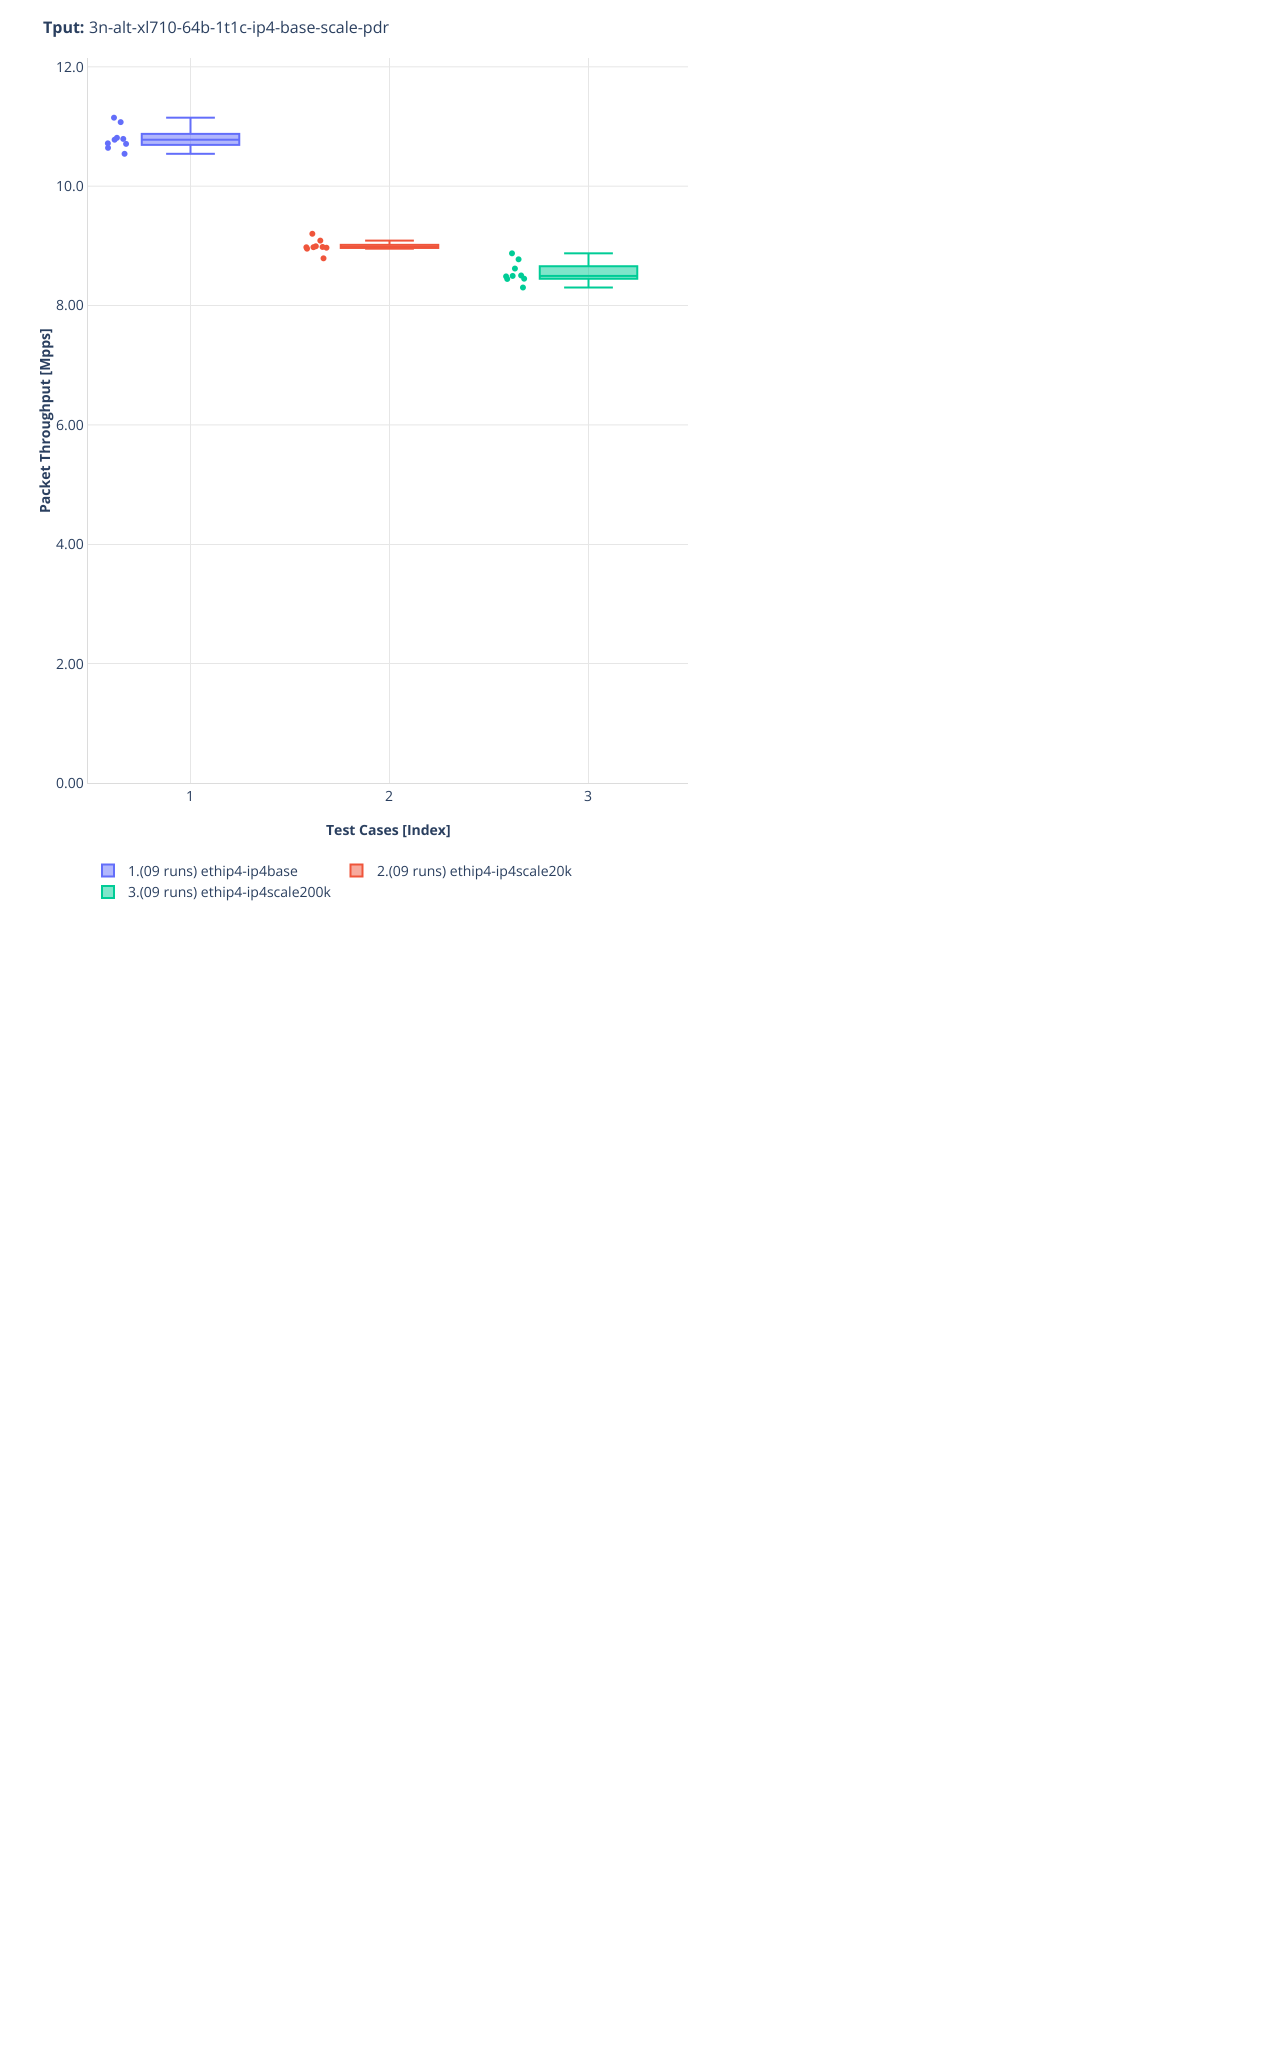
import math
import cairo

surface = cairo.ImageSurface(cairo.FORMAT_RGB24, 1262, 2063)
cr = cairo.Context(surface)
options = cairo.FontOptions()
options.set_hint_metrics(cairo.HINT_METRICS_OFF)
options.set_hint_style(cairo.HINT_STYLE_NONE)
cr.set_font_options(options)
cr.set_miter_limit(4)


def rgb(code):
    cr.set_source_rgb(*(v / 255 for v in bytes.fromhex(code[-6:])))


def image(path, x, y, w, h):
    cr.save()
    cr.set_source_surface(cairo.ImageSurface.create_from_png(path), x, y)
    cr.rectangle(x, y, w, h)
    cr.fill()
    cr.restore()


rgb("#ffffff")
cr.paint()
rgb("#b1b7fd")
cr.rectangle(103, 865, 10, 11)
cr.fill()
cr.new_path()
cr.move_to(114, 876.5)
cr.line_to(102, 876.5)
cr.line_to(102, 864.5)
cr.line_to(114, 864.5)
cr.close_path()
rgb("#636efa")
cr.stroke()
rgb("#f7aa9d")
cr.rectangle(351, 865, 11, 11)
cr.fill()
cr.new_path()
cr.move_to(362.5, 876.5)
cr.line_to(350.5, 876.5)
cr.line_to(350.5, 864.5)
cr.line_to(362.5, 864.5)
cr.close_path()
rgb("#ef553b")
cr.stroke()
rgb("#80e6cb")
cr.rectangle(103, 887, 10, 10)
cr.fill()
cr.new_path()
cr.move_to(114, 898)
cr.line_to(102, 898)
cr.line_to(102, 886)
cr.line_to(114, 886)
cr.close_path()
rgb("#00cc96")
cr.stroke()
image("img/1.png", 87, 58, 601, 726)
cr.select_font_face("Open Sans", cairo.FONT_SLANT_NORMAL, cairo.FONT_WEIGHT_BOLD)
cr.set_font_size(16)
rgb("#2a3f5f")
cr.move_to(43, 33)
cr.show_text("Tput:")
cr.select_font_face("Open Sans")
cr.move_to(89, 33)
cr.show_text("3n-alt-xl710-64b-1t1c-ip4-base-scale-pdr")
cr.select_font_face("Open Sans", cairo.FONT_SLANT_NORMAL, cairo.FONT_WEIGHT_BOLD)
cr.set_font_size(14)
cr.save()
cr.translate(50, 513)
cr.rotate(-90 * math.pi / 180)
cr.move_to(0, 0)
cr.show_text("Packet Throughput [Mpps]")
cr.restore()
cr.move_to(326, 835)
cr.show_text("Test Cases [Index]")
cr.select_font_face("Open Sans")
for x, y, s in [
    (128, 876, "1.(09 runs) ethip4-ip4base"),
    (377, 876, "2.(09 runs) ethip4-ip4scale20k"),
    (128, 897, "3.(09 runs) ethip4-ip4scale200k"),
    (56, 72, "12.0"),
    (56, 191, "10.0"),
    (56, 310, "8.00"),
    (56, 430, "6.00"),
    (56, 549, "4.00"),
    (56, 669, "2.00"),
    (56, 788, "0.00"),
    (186, 801, "1"),
    (385, 801, "2"),
    (584, 801, "3"),
]:
    cr.move_to(x, y)
    cr.show_text(s)
surface.write_to_png("page.png")
